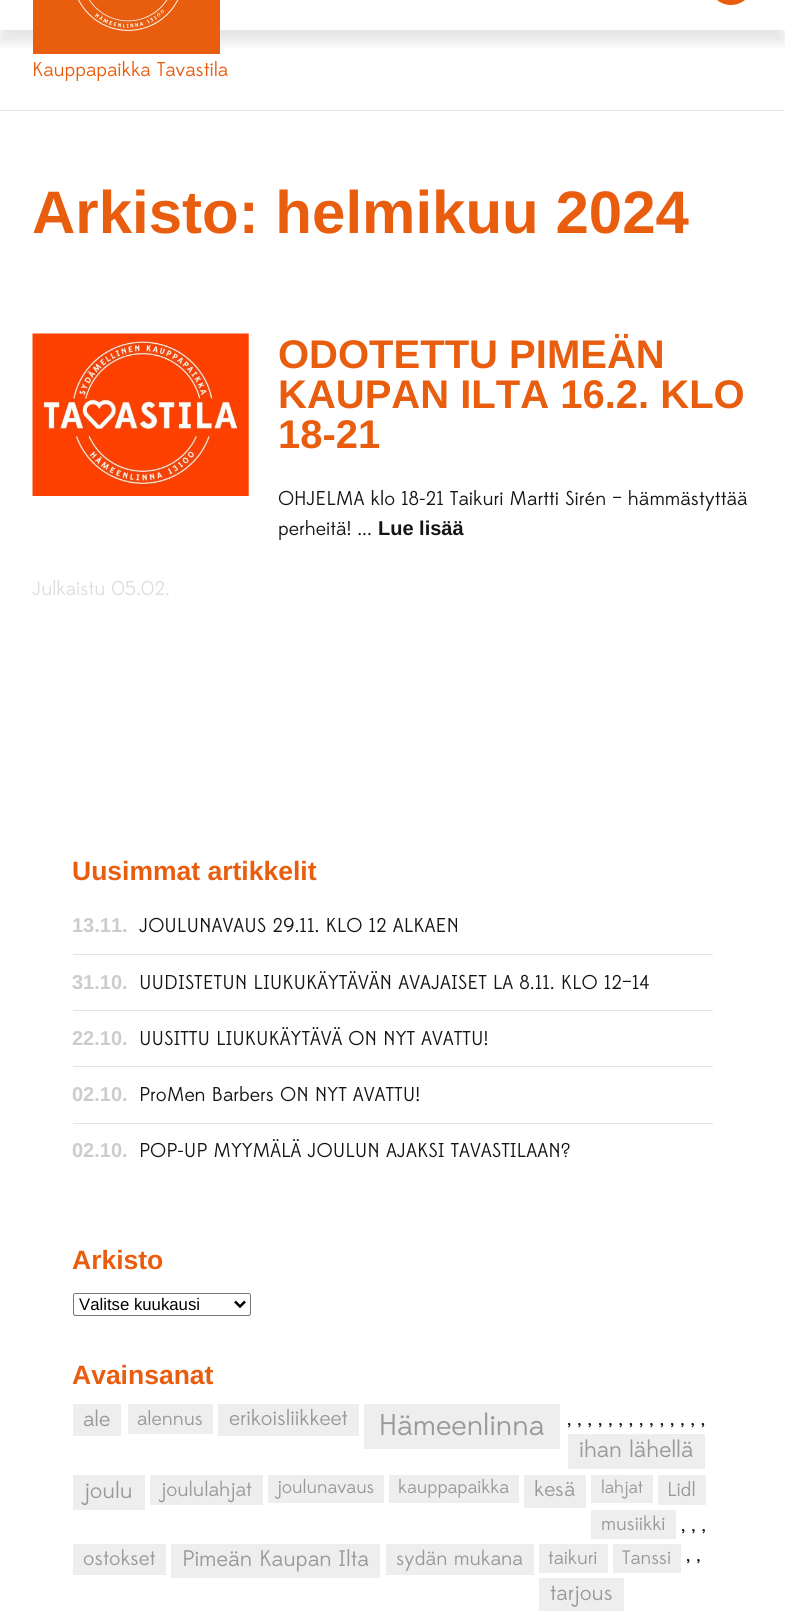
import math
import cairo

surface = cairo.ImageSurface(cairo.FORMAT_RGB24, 785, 1612)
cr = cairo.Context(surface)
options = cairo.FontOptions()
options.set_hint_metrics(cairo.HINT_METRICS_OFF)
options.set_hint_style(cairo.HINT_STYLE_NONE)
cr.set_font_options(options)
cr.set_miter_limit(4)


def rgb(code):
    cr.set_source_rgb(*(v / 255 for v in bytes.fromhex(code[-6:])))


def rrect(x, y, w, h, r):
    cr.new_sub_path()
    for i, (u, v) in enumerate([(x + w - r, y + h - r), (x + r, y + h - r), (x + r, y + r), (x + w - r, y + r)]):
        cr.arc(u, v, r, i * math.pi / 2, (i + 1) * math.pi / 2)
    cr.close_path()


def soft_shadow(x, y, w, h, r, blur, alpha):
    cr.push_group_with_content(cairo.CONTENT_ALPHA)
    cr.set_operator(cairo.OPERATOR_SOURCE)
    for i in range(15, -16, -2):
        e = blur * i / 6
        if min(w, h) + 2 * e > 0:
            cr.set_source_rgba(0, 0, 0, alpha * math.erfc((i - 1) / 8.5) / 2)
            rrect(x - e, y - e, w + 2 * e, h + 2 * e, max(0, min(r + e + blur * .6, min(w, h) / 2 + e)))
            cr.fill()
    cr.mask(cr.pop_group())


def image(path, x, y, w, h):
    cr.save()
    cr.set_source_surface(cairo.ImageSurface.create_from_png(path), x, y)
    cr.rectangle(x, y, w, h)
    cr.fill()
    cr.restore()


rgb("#ffffff")
cr.paint()
cr.save()
cr.rectangle(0, 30, 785, 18)
cr.clip()
rgb("#000000")
soft_shadow(0, -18, 785, 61, 0, 6, 0.1)
cr.restore()
rgb("#e95d0f")
rrect(709, -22, 44, 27, 22)
cr.fill()
cr.rectangle(33, 0, 187, 54)
cr.fill()
image("img/1.png", 78, 0, 101, 31)
rgb("#e7e7e7")
cr.rectangle(0, 110, 785, 1)
cr.fill()
image("img/2.png", 32, 333, 217, 163)
for x, y, w, h, color in [
    (73, 954, 640, 1, "#e5e5e5"),
    (73, 1010, 640, 1, "#e5e5e5"),
    (73, 1066, 640, 1, "#e5e5e5"),
    (73, 1123, 640, 1, "#e5e5e5"),
]:
    rgb(color)
    cr.rectangle(x, y, w, h)
    cr.fill()
rrect(73.5, 1293.5, 177, 22, 2)
rgb("#767676")
cr.set_line_width(1)
cr.stroke()
cr.new_path()
cr.move_to(235, 1301.5)
cr.line_to(240, 1306.5)
cr.line_to(245, 1301.5)
rgb("#000000")
cr.set_line_width(2.5)
cr.stroke()
for x, y, w, h, color in [
    (73, 1404, 48, 32, "#eeeeee"),
    (128, 1404, 85, 30, "#eeeeee"),
    (218, 1404, 141, 32, "#eeeeee"),
    (364, 1404, 196, 45, "#eeeeee"),
    (568, 1434, 137, 35, "#eeeeee"),
    (73, 1475, 72, 35, "#eeeeee"),
    (150, 1475, 113, 30, "#eeeeee"),
    (268, 1475, 116, 28, "#eeeeee"),
    (389, 1475, 130, 28, "#eeeeee"),
    (524, 1475, 62, 33, "#eeeeee"),
    (591, 1475, 62, 28, "#eeeeee"),
    (658, 1475, 48, 30, "#eeeeee"),
    (591, 1510, 85, 29, "#eeeeee"),
    (73, 1544, 93, 31, "#eeeeee"),
    (171, 1544, 209, 34, "#eeeeee"),
    (386, 1544, 148, 31, "#eeeeee"),
    (539, 1544, 69, 29, "#eeeeee"),
    (613, 1544, 68, 29, "#eeeeee"),
    (539, 1578, 85, 33, "#eeeeee"),
]:
    rgb(color)
    cr.rectangle(x, y, w, h)
    cr.fill()
cr.select_font_face("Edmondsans")
cr.set_font_size(20)
rgb("#e95d0f")
cr.move_to(32, 76)
cr.show_text("Kauppapaikka Tavastila")
cr.select_font_face("Liberation Sans", cairo.FONT_SLANT_NORMAL, cairo.FONT_WEIGHT_BOLD)
cr.set_font_size(60)
cr.move_to(32, 233)
cr.show_text("Arkisto: helmikuu 2024")
cr.set_font_size(40)
for x, y, s in [
    (278, 368, "ODOTETTU PIMEÄN"),
    (278, 408, "KAUPAN ILTA 16.2. KLO"),
    (278, 448, "18-21"),
]:
    cr.move_to(x, y)
    cr.show_text(s)
cr.select_font_face("Edmondsans")
cr.set_font_size(20)
rgb("#151515")
cr.move_to(278, 505)
cr.show_text("OHJELMA klo 18-21 Taikuri Martti Sirén – hämmästyttää")
cr.move_to(278, 535)
cr.show_text("perheitä! ...")
cr.select_font_face("Liberation Sans", cairo.FONT_SLANT_NORMAL, cairo.FONT_WEIGHT_BOLD)
cr.move_to(378, 535)
cr.show_text("Lue lisää")
cr.select_font_face("Edmondsans")
rgb("#dddddd")
cr.move_to(32, 595)
cr.show_text("Julkaistu 05.02.")
cr.select_font_face("Liberation Sans", cairo.FONT_SLANT_NORMAL, cairo.FONT_WEIGHT_BOLD)
cr.set_font_size(26.5)
rgb("#e95d0f")
cr.move_to(72, 880)
cr.show_text("Uusimmat artikkelit")
cr.set_font_size(20)
rgb("#cccccc")
cr.move_to(72, 932)
cr.show_text("13.11.")
cr.select_font_face("Edmondsans")
rgb("#151515")
cr.move_to(139, 932)
cr.show_text("JOULUNAVAUS 29.11. KLO 12 ALKAEN")
cr.select_font_face("Liberation Sans", cairo.FONT_SLANT_NORMAL, cairo.FONT_WEIGHT_BOLD)
rgb("#cccccc")
cr.move_to(72, 989)
cr.show_text("31.10.")
cr.select_font_face("Edmondsans")
rgb("#151515")
cr.move_to(139, 989)
cr.show_text("UUDISTETUN LIUKUKÄYTÄVÄN AVAJAISET LA 8.11. KLO 12–14")
cr.select_font_face("Liberation Sans", cairo.FONT_SLANT_NORMAL, cairo.FONT_WEIGHT_BOLD)
rgb("#cccccc")
cr.move_to(72, 1045)
cr.show_text("22.10.")
cr.select_font_face("Edmondsans")
rgb("#151515")
cr.move_to(139, 1045)
cr.show_text("UUSITTU LIUKUKÄYTÄVÄ ON NYT AVATTU!")
cr.select_font_face("Liberation Sans", cairo.FONT_SLANT_NORMAL, cairo.FONT_WEIGHT_BOLD)
rgb("#cccccc")
cr.move_to(72, 1101)
cr.show_text("02.10.")
cr.select_font_face("Edmondsans")
rgb("#151515")
cr.move_to(139, 1101)
cr.show_text("ProMen Barbers ON NYT AVATTU!")
cr.select_font_face("Liberation Sans", cairo.FONT_SLANT_NORMAL, cairo.FONT_WEIGHT_BOLD)
rgb("#cccccc")
cr.move_to(72, 1157)
cr.show_text("02.10.")
cr.select_font_face("Edmondsans")
rgb("#151515")
cr.move_to(139, 1157)
cr.show_text("POP-UP MYYMÄLÄ JOULUN AJAKSI TAVASTILAAN?")
cr.select_font_face("Liberation Sans", cairo.FONT_SLANT_NORMAL, cairo.FONT_WEIGHT_BOLD)
cr.set_font_size(26.5)
rgb("#e95d0f")
cr.move_to(72, 1269)
cr.show_text("Arkisto")
cr.select_font_face("Liberation Sans")
cr.set_font_size(16.75)
rgb("#000000")
cr.move_to(79, 1310)
cr.show_text("Valitse kuukausi")
cr.select_font_face("Liberation Sans", cairo.FONT_SLANT_NORMAL, cairo.FONT_WEIGHT_BOLD)
cr.set_font_size(26.5)
rgb("#e95d0f")
cr.move_to(72, 1384)
cr.show_text("Avainsanat")
cr.select_font_face("Edmondsans")
cr.set_font_size(22)
rgb("#999999")
cr.move_to(83, 1426)
cr.show_text("ale")
cr.set_font_size(20)
cr.move_to(137, 1425)
cr.show_text("alennus")
cr.set_font_size(21.5)
cr.move_to(229, 1425)
cr.show_text("erikoisliikkeet")
cr.set_font_size(30)
cr.move_to(379, 1435)
cr.show_text("Hämeenlinna")
cr.set_font_size(20)
rgb("#151515")
cr.move_to(567, 1425)
cr.show_text(", , , , , , , , , , , , , ,")
cr.set_font_size(23.5)
rgb("#999999")
cr.move_to(579, 1457)
cr.show_text("ihan lähellä")
cr.set_font_size(23)
cr.move_to(84, 1498)
cr.show_text("joulu")
cr.set_font_size(20.5)
cr.move_to(161, 1496)
cr.show_text("joululahjat")
cr.set_font_size(19)
cr.move_to(277, 1493)
cr.show_text("joulunavaus")
cr.move_to(398, 1493)
cr.show_text("kauppapaikka")
cr.set_font_size(21.5)
cr.move_to(534, 1496)
cr.show_text("kesä")
cr.set_font_size(18)
cr.move_to(601, 1493)
cr.show_text("lahjat")
cr.set_font_size(20)
cr.move_to(667, 1496)
cr.show_text("Lidl")
cr.set_font_size(19.5)
cr.move_to(601, 1530)
cr.show_text("musiikki")
cr.set_font_size(20)
rgb("#151515")
cr.move_to(681, 1531)
cr.show_text(", , ,")
cr.set_font_size(21)
rgb("#999999")
cr.move_to(83, 1565)
cr.show_text("ostokset")
cr.set_font_size(22.5)
cr.move_to(182, 1566)
cr.show_text("Pimeän Kaupan Ilta")
cr.set_font_size(20.5)
cr.move_to(396, 1565)
cr.show_text("sydän mukana")
cr.set_font_size(19.5)
cr.move_to(548, 1564)
cr.show_text("taikuri")
cr.move_to(622, 1564)
cr.show_text("Tanssi")
cr.set_font_size(20)
rgb("#151515")
cr.move_to(686, 1561)
cr.show_text(", ,")
cr.set_font_size(22)
rgb("#999999")
cr.move_to(550, 1600)
cr.show_text("tarjous")
surface.write_to_png("page.png")
